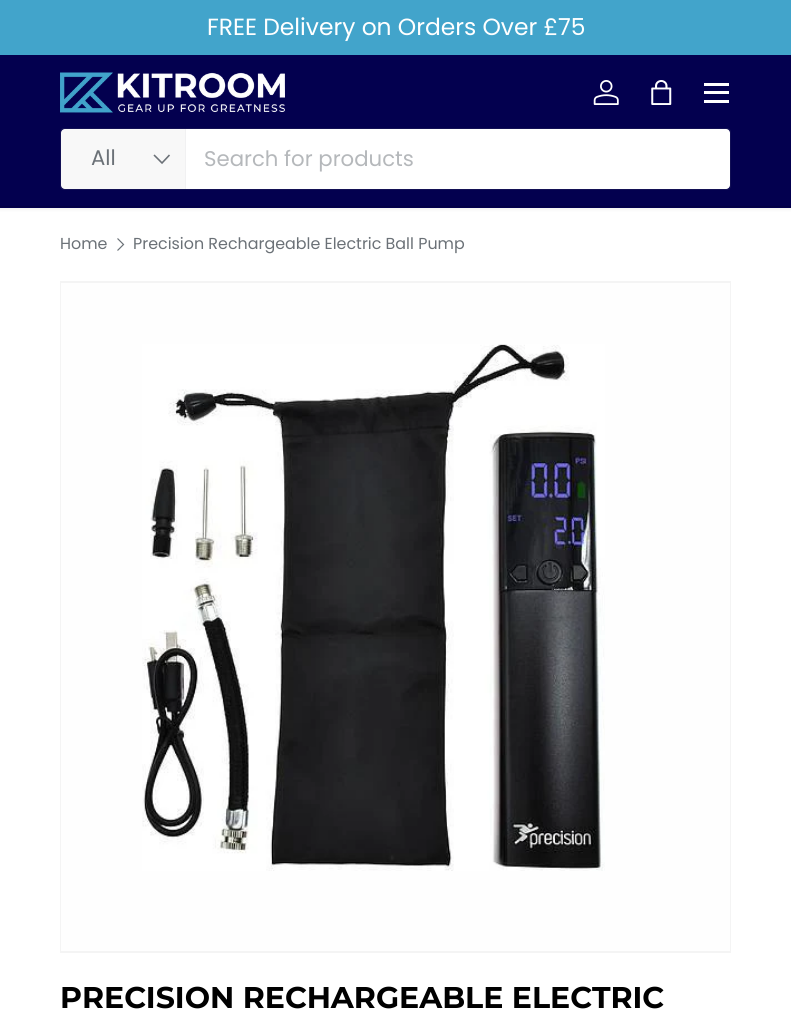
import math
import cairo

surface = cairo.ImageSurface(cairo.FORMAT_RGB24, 791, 1034)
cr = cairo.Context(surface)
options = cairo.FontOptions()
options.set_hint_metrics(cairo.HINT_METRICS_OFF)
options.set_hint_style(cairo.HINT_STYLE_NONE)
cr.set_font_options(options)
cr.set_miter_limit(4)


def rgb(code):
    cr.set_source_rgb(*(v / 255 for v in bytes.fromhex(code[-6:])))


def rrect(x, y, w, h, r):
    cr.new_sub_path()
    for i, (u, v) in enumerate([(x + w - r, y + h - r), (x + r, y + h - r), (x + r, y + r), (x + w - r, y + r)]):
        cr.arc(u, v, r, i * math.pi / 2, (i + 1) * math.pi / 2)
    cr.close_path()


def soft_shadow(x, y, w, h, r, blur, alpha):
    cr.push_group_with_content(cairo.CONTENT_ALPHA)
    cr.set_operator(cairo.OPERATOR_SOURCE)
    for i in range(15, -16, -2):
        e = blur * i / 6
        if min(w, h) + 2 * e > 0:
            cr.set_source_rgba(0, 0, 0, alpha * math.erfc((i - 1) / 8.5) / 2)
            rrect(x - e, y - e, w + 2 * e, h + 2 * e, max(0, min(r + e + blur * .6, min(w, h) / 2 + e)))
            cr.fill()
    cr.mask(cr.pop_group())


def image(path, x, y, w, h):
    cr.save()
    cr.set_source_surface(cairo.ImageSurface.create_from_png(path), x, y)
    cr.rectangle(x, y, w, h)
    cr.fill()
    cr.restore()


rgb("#ffffff")
cr.paint()
rgb("#000000")
soft_shadow(-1, 54, 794, 155, 0, 2, 0.08)
rgb("#42a4cb")
cr.rectangle(0, 0, 791, 55)
cr.fill()
rgb("#03004f")
cr.rectangle(0, 55, 791, 153)
cr.fill()
image("img/1.png", 60, 72, 225, 41)
image("img/2.png", 593, 80, 26, 25)
image("img/3.png", 651, 80, 21, 25)
for x, y, w, h, color in [
    (704, 83, 25, 3, "#ffffff"),
    (704, 100, 25, 3, "#ffffff"),
    (704, 91, 25, 3, "#ffffff"),
]:
    rgb(color)
    cr.rectangle(x, y, w, h)
    cr.fill()
rrect(60.5, 128.5, 670, 61, 3.5)
rgb("#131155")
cr.set_line_width(1)
cr.stroke()
rgb("#ffffff")
rrect(61, 129, 669, 60, 4)
cr.fill()
cr.set_source_rgba(0.42, 0.443, 0.467, 0.05)
cr.rectangle(61, 129, 124, 60)
cr.fill()
rgb("#f1f1f2")
cr.rectangle(185, 129, 1, 60)
cr.fill()
cr.new_path()
cr.move_to(169.5, 155)
cr.line_to(162, 163)
cr.line_to(154, 155)
rgb("#6b7177")
cr.set_line_width(1.6)
cr.stroke()
rgb("#030043")
cr.rectangle(0, 206, 791, 1)
cr.fill()
cr.new_path()
cr.move_to(117.5, 238.5)
cr.line_to(123.5, 244.5)
cr.line_to(117.5, 250.5)
rgb("#6b7177")
cr.set_line_width(1.2)
cr.stroke()
rgb("#f4f4f4")
cr.rectangle(60, 281, 671, 672)
cr.fill()
rgb("#fefefe")
cr.rectangle(61, 283, 669, 668)
cr.fill()
image("img/4.png", 142, 344, 463, 527)
cr.select_font_face("Poppins")
cr.set_font_size(23.4)
rgb("#ffffff")
cr.move_to(207, 35)
cr.show_text("FREE Delivery on Orders Over £75")
cr.set_font_size(21.25)
rgb("#6b7177")
cr.move_to(91, 165)
cr.show_text("All")
rgb("#b5b8bb")
cr.move_to(204, 166)
cr.show_text("Search for products")
cr.set_font_size(15.9)
rgb("#6b7177")
cr.move_to(60, 249)
cr.show_text("Home")
cr.move_to(133, 249)
cr.show_text("Precision Rechargeable Electric Ball Pump")
cr.select_font_face("Montserrat", cairo.FONT_SLANT_NORMAL, cairo.FONT_WEIGHT_BOLD)
cr.set_font_size(30)
rgb("#000000")
cr.move_to(60, 1008)
cr.show_text("PRECISION RECHARGEABLE ELECTRIC")
surface.write_to_png("page.png")
